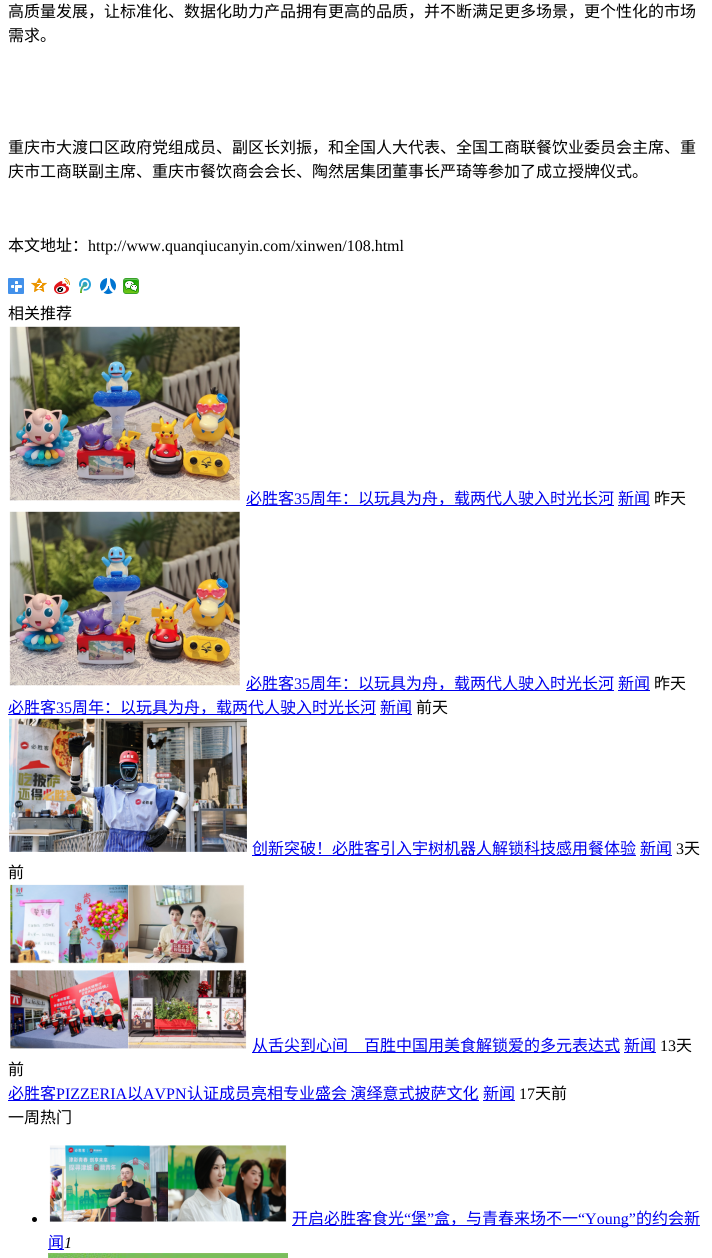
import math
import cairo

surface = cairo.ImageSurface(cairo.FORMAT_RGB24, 712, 1258)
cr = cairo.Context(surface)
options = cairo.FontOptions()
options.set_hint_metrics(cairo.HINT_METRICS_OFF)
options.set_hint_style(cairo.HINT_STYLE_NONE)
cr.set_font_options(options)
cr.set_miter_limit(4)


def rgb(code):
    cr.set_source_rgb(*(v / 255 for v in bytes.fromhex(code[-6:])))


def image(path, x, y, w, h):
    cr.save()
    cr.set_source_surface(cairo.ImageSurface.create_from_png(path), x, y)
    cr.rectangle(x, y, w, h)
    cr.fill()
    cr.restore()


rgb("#ffffff")
cr.paint()
image("img/1.png", 8, 278, 16, 16)
image("img/2.png", 31, 278, 16, 14)
image("img/3.png", 54, 278, 16, 16)
image("img/4.png", 79, 278, 12, 15)
image("img/5.png", 100, 278, 16, 16)
image("img/6.png", 123, 278, 16, 16)
image("img/7.png", 9, 326, 231, 175)
rgb("#0000ee")
cr.rectangle(246, 505, 368, 1)
cr.fill()
cr.rectangle(618, 505, 32, 1)
cr.fill()
image("img/7.png", 9, 511, 231, 175)
for x, y, w, h, color in [
    (246, 690, 368, 1, "#0000ee"),
    (618, 690, 32, 1, "#0000ee"),
    (8, 714, 368, 1, "#0000ee"),
    (380, 714, 32, 1, "#0000ee"),
]:
    rgb(color)
    cr.rectangle(x, y, w, h)
    cr.fill()
image("img/8.png", 9, 718, 238, 134)
cr.rectangle(252, 855, 384, 1)
cr.fill()
cr.rectangle(640, 855, 32, 1)
cr.fill()
image("img/9.png", 10, 884, 237, 165)
for x, y, w, h, color in [
    (252, 1052, 368, 1, "#0000ee"),
    (624, 1052, 32, 1, "#0000ee"),
    (8, 1100, 471, 1, "#0000ee"),
    (483, 1100, 32, 1, "#0000ee"),
]:
    rgb(color)
    cr.rectangle(x, y, w, h)
    cr.fill()
rgb("#000000")
cr.arc(34.5, 1219.5, 2.5, 0, 2 * math.pi)
cr.fill()
image("img/10.png", 49, 1145, 238, 77)
rgb("#0000ee")
cr.rectangle(292, 1225, 408, 1)
cr.fill()
cr.rectangle(48, 1249, 16, 1)
cr.fill()
image("img/11.png", 48, 1253, 240, 5)
cr.select_font_face("Noto Sans CJK SC")
cr.set_font_size(16)
rgb("#000000")
for x, y, s in [
    (8, 17, "高质量发展，让标准化、数据化助力产品拥有更高的品质，并不断满足更多场景，更个性化的市场"),
    (8, 41, "需求。"),
    (8, 153, "重庆市大渡口区政府党组成员、副区长刘振，和全国人大代表、全国工商联餐饮业委员会主席、重"),
    (8, 177, "庆市工商联副主席、重庆市餐饮商会会长、陶然居集团董事长严琦等参加了成立授牌仪式。"),
    (8, 251, "本文地址："),
]:
    cr.move_to(x, y)
    cr.show_text(s)
cr.select_font_face("Liberation Serif")
cr.move_to(88, 251)
cr.show_text("http://www.quanqiucanyin.com/xinwen/108.html")
cr.select_font_face("Noto Sans CJK SC")
cr.move_to(8, 319)
cr.show_text("相关推荐")
rgb("#0000ee")
cr.move_to(246, 504)
cr.show_text("必胜客")
cr.select_font_face("Liberation Serif")
cr.move_to(294, 504)
cr.show_text("35")
cr.select_font_face("Noto Sans CJK SC")
cr.move_to(310, 504)
cr.show_text("周年：以玩具为舟，载两代人驶入时光长河")
cr.move_to(618, 504)
cr.show_text("新闻")
rgb("#000000")
cr.move_to(654, 504)
cr.show_text("昨天")
rgb("#0000ee")
cr.move_to(246, 689)
cr.show_text("必胜客")
cr.select_font_face("Liberation Serif")
cr.move_to(294, 689)
cr.show_text("35")
cr.select_font_face("Noto Sans CJK SC")
cr.move_to(310, 689)
cr.show_text("周年：以玩具为舟，载两代人驶入时光长河")
cr.move_to(618, 689)
cr.show_text("新闻")
rgb("#000000")
cr.move_to(654, 689)
cr.show_text("昨天")
rgb("#0000ee")
cr.move_to(8, 713)
cr.show_text("必胜客")
cr.select_font_face("Liberation Serif")
cr.move_to(56, 713)
cr.show_text("35")
cr.select_font_face("Noto Sans CJK SC")
cr.move_to(72, 713)
cr.show_text("周年：以玩具为舟，载两代人驶入时光长河")
cr.move_to(380, 713)
cr.show_text("新闻")
rgb("#000000")
cr.move_to(416, 713)
cr.show_text("前天")
rgb("#0000ee")
cr.move_to(252, 854)
cr.show_text("创新突破！必胜客引入宇树机器人解锁科技感用餐体验")
cr.move_to(640, 854)
cr.show_text("新闻")
cr.select_font_face("Liberation Serif")
rgb("#000000")
cr.move_to(676, 854)
cr.show_text("3")
cr.select_font_face("Noto Sans CJK SC")
cr.move_to(684, 854)
cr.show_text("天")
cr.move_to(8, 878)
cr.show_text("前")
rgb("#0000ee")
cr.move_to(252, 1051)
cr.show_text("从舌尖到心间　百胜中国用美食解锁爱的多元表达式")
cr.move_to(624, 1051)
cr.show_text("新闻")
cr.select_font_face("Liberation Serif")
rgb("#000000")
cr.move_to(660, 1051)
cr.show_text("13")
cr.select_font_face("Noto Sans CJK SC")
cr.move_to(676, 1051)
cr.show_text("天")
cr.move_to(8, 1075)
cr.show_text("前")
rgb("#0000ee")
cr.move_to(8, 1099)
cr.show_text("必胜客")
cr.select_font_face("Liberation Serif")
cr.move_to(56, 1099)
cr.show_text("PIZZERIA")
cr.select_font_face("Noto Sans CJK SC")
cr.move_to(127, 1099)
cr.show_text("以")
cr.select_font_face("Liberation Serif")
cr.move_to(143, 1099)
cr.show_text("AVPN")
cr.select_font_face("Noto Sans CJK SC")
cr.move_to(187, 1099)
cr.show_text("认证成员亮相专业盛会 演绎意式披萨文化")
cr.move_to(483, 1099)
cr.show_text("新闻")
cr.select_font_face("Liberation Serif")
rgb("#000000")
cr.move_to(519, 1099)
cr.show_text("17")
cr.select_font_face("Noto Sans CJK SC")
cr.move_to(535, 1099)
cr.show_text("天前")
cr.move_to(8, 1123)
cr.show_text("一周热门")
rgb("#0000ee")
cr.move_to(292, 1224)
cr.show_text("开启必胜客食光")
cr.select_font_face("Liberation Serif")
cr.move_to(404, 1224)
cr.show_text("“")
cr.select_font_face("Noto Sans CJK SC")
cr.move_to(411, 1224)
cr.show_text("堡")
cr.select_font_face("Liberation Serif")
cr.move_to(427, 1224)
cr.show_text("”")
cr.select_font_face("Noto Sans CJK SC")
cr.move_to(434, 1224)
cr.show_text("盒，与青春来场不一")
cr.select_font_face("Liberation Serif")
cr.move_to(578, 1224)
cr.show_text("“Young”")
cr.select_font_face("Noto Sans CJK SC")
cr.move_to(636, 1224)
cr.show_text("的约会新")
cr.move_to(48, 1248)
cr.show_text("闻")
cr.select_font_face("Liberation Serif", cairo.FONT_SLANT_ITALIC)
rgb("#000000")
cr.move_to(64, 1248)
cr.show_text("1")
surface.write_to_png("page.png")
